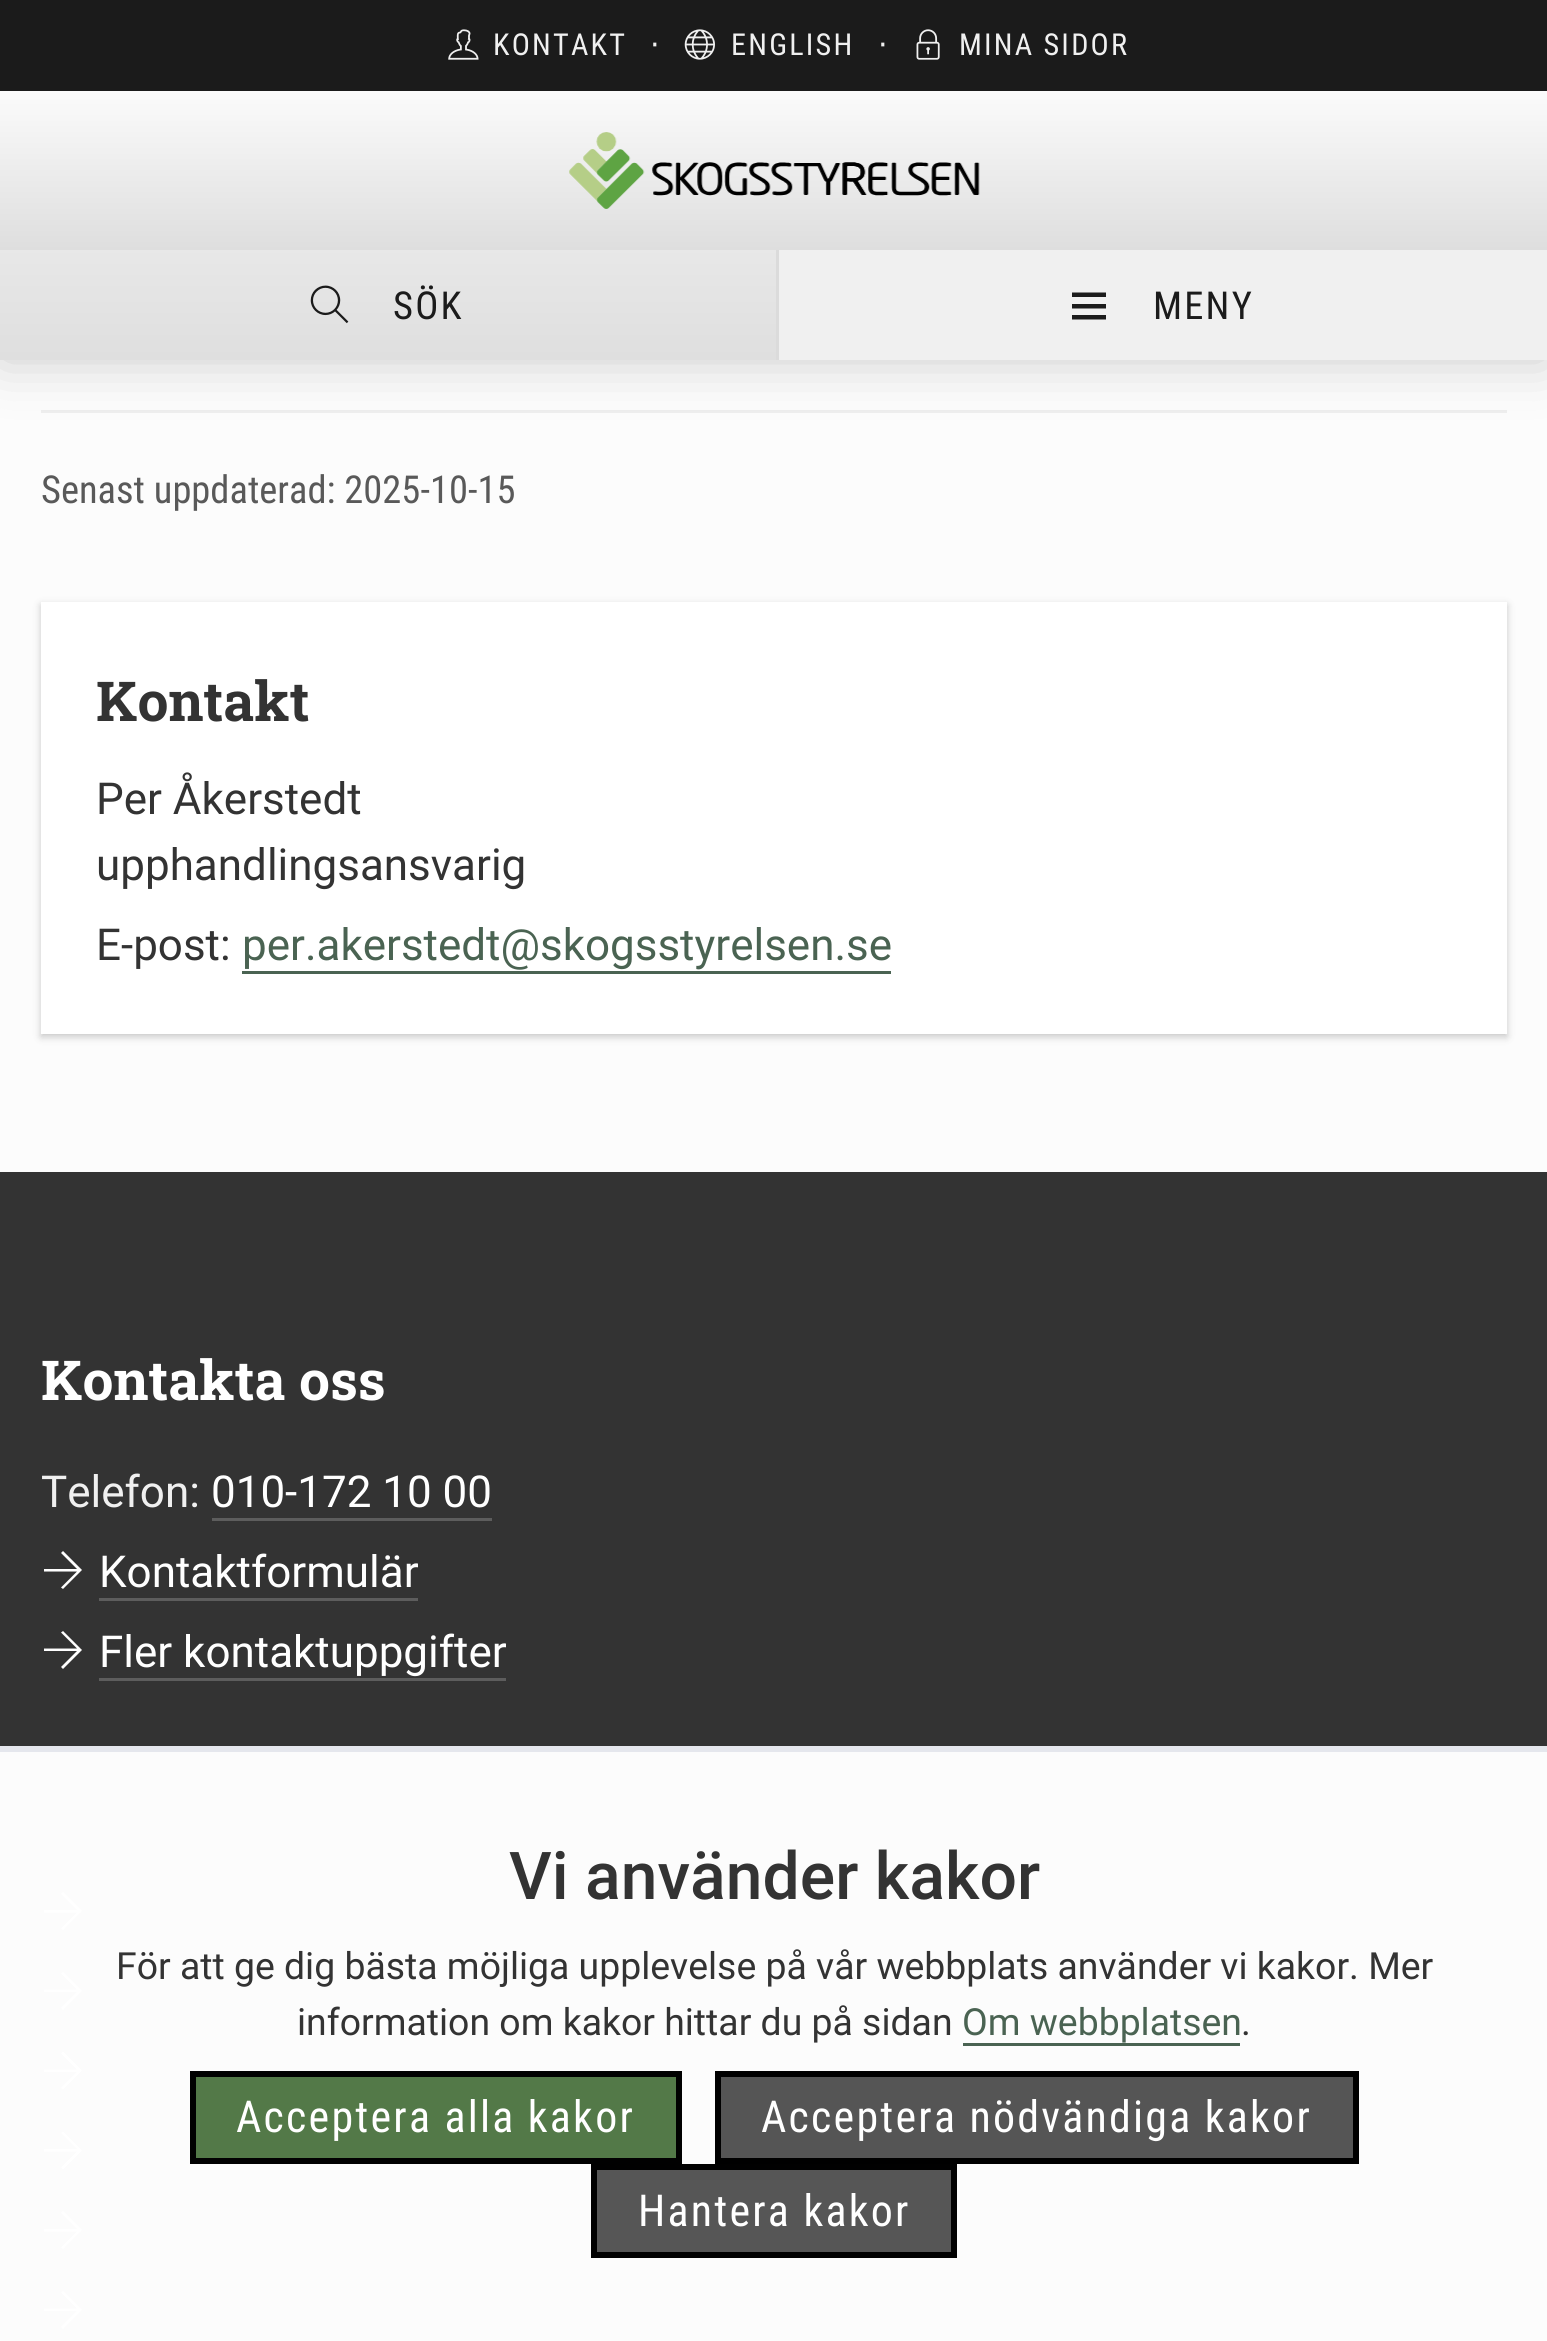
import math
import cairo

surface = cairo.ImageSurface(cairo.FORMAT_RGB24, 1547, 2341)
cr = cairo.Context(surface)
options = cairo.FontOptions()
options.set_hint_metrics(cairo.HINT_METRICS_OFF)
options.set_hint_style(cairo.HINT_STYLE_NONE)
cr.set_font_options(options)
cr.set_miter_limit(4)


def rgb(code):
    cr.set_source_rgb(*(v / 255 for v in bytes.fromhex(code[-6:])))


def tracked(x, y, s, letter, word):
    cr.move_to(x, y)
    for ch in s:
        cr.show_text(ch)
        cr.rel_move_to(letter + word * (ch == ' '), 0)


def rrect(x, y, w, h, r):
    cr.new_sub_path()
    for i, (u, v) in enumerate([(x + w - r, y + h - r), (x + r, y + h - r), (x + r, y + r), (x + w - r, y + r)]):
        cr.arc(u, v, r, i * math.pi / 2, (i + 1) * math.pi / 2)
    cr.close_path()


def soft_shadow(x, y, w, h, r, blur, alpha):
    cr.push_group_with_content(cairo.CONTENT_ALPHA)
    cr.set_operator(cairo.OPERATOR_SOURCE)
    for i in range(15, -16, -2):
        e = blur * i / 6
        if min(w, h) + 2 * e > 0:
            cr.set_source_rgba(0, 0, 0, alpha * math.erfc((i - 1) / 8.5) / 2)
            rrect(x - e, y - e, w + 2 * e, h + 2 * e, max(0, min(r + e + blur * .6, min(w, h) / 2 + e)))
            cr.fill()
    cr.mask(cr.pop_group())


def image(path, x, y, w, h):
    cr.save()
    cr.set_source_surface(cairo.ImageSurface.create_from_png(path), x, y)
    cr.rectangle(x, y, w, h)
    cr.fill()
    cr.restore()


rgb("#fcfcfc")
cr.paint()
rgb("#eeeeee")
cr.rectangle(41, 410, 1466, 3)
cr.fill()
rgb("#000000")
soft_shadow(0, 0, 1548, 360, 0, 27.5, 0.2)
rgb("#1b1b1b")
cr.rectangle(0, 0, 1547, 91)
cr.fill()
image("img/1.png", 448, 29, 31, 31)
image("img/2.png", 684, 29, 31, 31)
image("img/3.png", 916, 29, 24, 31)
gradient = cairo.LinearGradient(774, 91, 774, 360)
gradient.add_color_stop_rgba(0, 0.984, 0.984, 0.984, 1)
gradient.add_color_stop_rgba(1, 0.792, 0.792, 0.792, 1)
cr.set_source(gradient)
cr.rectangle(0, 91, 1547, 269)
cr.fill()
image("img/4.png", 569, 132, 411, 77)
cr.set_source_rgba(0.941, 0.941, 0.941, 0.56)
cr.rectangle(0, 250, 776, 110)
cr.fill()
image("img/5.png", 310, 285, 39, 39)
rgb("#f0f0f0")
cr.rectangle(779, 250, 768, 110)
cr.fill()
rgb("#dbdbdb")
cr.rectangle(776, 250, 3, 110)
cr.fill()
rgb("#1b1b1b")
cr.new_path()
cr.move_to(1106, 292.5)
cr.line_to(1106, 297)
cr.line_to(1072, 297)
cr.line_to(1072, 292.5)
cr.close_path()
cr.move_to(1072, 308.5)
cr.line_to(1106, 308.5)
cr.line_to(1106, 304)
cr.line_to(1072, 304)
cr.close_path()
cr.move_to(1072, 319.5)
cr.line_to(1106, 319.5)
cr.line_to(1106, 315)
cr.line_to(1072, 315)
cr.close_path()
cr.fill()
rgb("#000000")
soft_shadow(41, 605, 1466, 432, 0, 4, 0.21)
for x, y, w, h, color in [
    (41, 602, 1466, 432, "#ffffff"),
    (242, 971, 649, 3, "#4a6352"),
    (0, 1172, 1547, 574, "#333333"),
    (212, 1518, 280, 3, "#5d5d5d"),
]:
    rgb(color)
    cr.rectangle(x, y, w, h)
    cr.fill()
rgb("#ffffff")
cr.new_path()
cr.move_to(82, 1570)
cr.line_to(63, 1589)
cr.line_to(61, 1587.5)
cr.line_to(77, 1571.5)
cr.line_to(44, 1571.5)
cr.line_to(44, 1569)
cr.line_to(77, 1569)
cr.line_to(61, 1553)
cr.line_to(63, 1551)
cr.close_path()
cr.fill()
rgb("#5d5d5d")
cr.rectangle(99, 1598, 319, 3)
cr.fill()
rgb("#ffffff")
cr.new_path()
cr.move_to(82, 1650)
cr.line_to(63, 1669)
cr.line_to(61, 1667)
cr.line_to(77, 1651)
cr.line_to(44, 1651)
cr.line_to(44, 1648.5)
cr.line_to(77, 1648.5)
cr.line_to(61, 1632.5)
cr.line_to(63, 1631)
cr.close_path()
cr.fill()
rgb("#5d5d5d")
cr.rectangle(99, 1678, 407, 3)
cr.fill()
rgb("#ffffff")
cr.new_path()
cr.move_to(82, 1911)
cr.line_to(63, 1930)
cr.line_to(61, 1928.5)
cr.line_to(77, 1912.5)
cr.line_to(44, 1912.5)
cr.line_to(44, 1910)
cr.line_to(77, 1910)
cr.line_to(61, 1894)
cr.line_to(63, 1892)
cr.close_path()
cr.fill()
cr.new_path()
cr.move_to(82, 1991)
cr.line_to(63, 2010)
cr.line_to(61, 2008)
cr.line_to(77, 1992)
cr.line_to(44, 1992)
cr.line_to(44, 1989.5)
cr.line_to(77, 1989.5)
cr.line_to(61, 1973.5)
cr.line_to(63, 1972)
cr.close_path()
cr.fill()
cr.new_path()
cr.move_to(82, 2070.5)
cr.line_to(63, 2089.5)
cr.line_to(61, 2088)
cr.line_to(77, 2072)
cr.line_to(44, 2072)
cr.line_to(44, 2069.5)
cr.line_to(77, 2069.5)
cr.line_to(61, 2053.5)
cr.line_to(63, 2051.5)
cr.close_path()
cr.fill()
cr.new_path()
cr.move_to(82, 2150.5)
cr.line_to(63, 2169.5)
cr.line_to(61, 2167.5)
cr.line_to(77, 2151.5)
cr.line_to(44, 2151.5)
cr.line_to(44, 2149)
cr.line_to(77, 2149)
cr.line_to(61, 2133)
cr.line_to(63, 2131.5)
cr.close_path()
cr.fill()
cr.new_path()
cr.move_to(82, 2230)
cr.line_to(63, 2249)
cr.line_to(61, 2247.5)
cr.line_to(77, 2231.5)
cr.line_to(44, 2231.5)
cr.line_to(44, 2229)
cr.line_to(77, 2229)
cr.line_to(61, 2213)
cr.line_to(63, 2211)
cr.close_path()
cr.fill()
cr.new_path()
cr.move_to(82, 2310)
cr.line_to(63, 2329)
cr.line_to(61, 2327)
cr.line_to(77, 2311)
cr.line_to(44, 2311)
cr.line_to(44, 2308.5)
cr.line_to(77, 2308.5)
cr.line_to(61, 2292.5)
cr.line_to(63, 2291)
cr.close_path()
cr.fill()
rgb("#e5e7ed")
cr.rectangle(0, 1746, 1547, 6)
cr.fill()
rgb("#4a6352")
cr.rectangle(963, 2043, 277, 3)
cr.fill()
rgb("#537948")
cr.rectangle(193, 2074, 486, 87)
cr.fill_preserve()
rgb("#010101")
cr.set_line_width(6)
cr.stroke()
rgb("#555555")
cr.rectangle(718, 2074, 638, 87)
cr.fill_preserve()
rgb("#000000")
cr.stroke()
rgb("#565656")
cr.rectangle(594, 2167, 360, 88)
cr.fill_preserve()
rgb("#010101")
cr.stroke()
cr.select_font_face("Roboto Condensed")
cr.set_font_size(30.25)
rgb("#f0f0f0")
tracked(493, 55, "KONTAKT", 2.2, 0)
cr.select_font_face("DejaVu Sans")
tracked(650, 55, "⋅", 2.2, 0)
cr.select_font_face("Roboto Condensed")
tracked(731, 55, "ENGLISH", 2.2, 0)
cr.select_font_face("DejaVu Sans")
tracked(878, 55, "⋅", 2.2, 0)
cr.select_font_face("Roboto Condensed")
tracked(959, 55, "MINA SIDOR", 2.2, 0)
cr.set_font_size(38.5)
rgb("#1b1b1b")
tracked(393, 319, "SÖK", 2.2, 0)
tracked(1153, 319, "MENY", 2.2, 0)
rgb("#595959")
cr.move_to(41, 503)
cr.show_text("Senast uppdaterad: 2025-10-15")
cr.select_font_face("Roboto Slab", cairo.FONT_SLANT_NORMAL, cairo.FONT_WEIGHT_BOLD)
cr.set_font_size(55)
rgb("#333333")
cr.move_to(96, 721)
cr.show_text("Kontakt")
cr.select_font_face("Roboto")
cr.set_font_size(44)
for x, y, s in [
    (96, 814, "Per Åkerstedt"),
    (96, 880, "upphandlingsansvarig"),
    (96, 960, "E-post:"),
]:
    cr.move_to(x, y)
    cr.show_text(s)
rgb("#4a6352")
cr.move_to(242, 960)
cr.show_text("per.akerstedt@skogsstyrelsen.se")
cr.select_font_face("Roboto Slab", cairo.FONT_SLANT_NORMAL, cairo.FONT_WEIGHT_BOLD)
cr.set_font_size(55)
rgb("#ffffff")
cr.move_to(41, 1400)
cr.show_text("Kontakta oss")
cr.select_font_face("Roboto")
cr.set_font_size(44)
rgb("#f0f0f0")
cr.move_to(41, 1507)
cr.show_text("Telefon:")
rgb("#ffffff")
for x, y, s in [
    (211, 1507, "010-172 10 00"),
    (99, 1587, "Kontaktformulär"),
    (99, 1667, "Fler kontaktuppgifter"),
]:
    cr.move_to(x, y)
    cr.show_text(s)
cr.select_font_face("Roboto Medium")
cr.set_font_size(66)
rgb("#333333")
cr.move_to(509, 1899)
cr.show_text("Vi använder kakor")
cr.select_font_face("Roboto")
cr.set_font_size(37.4)
cr.move_to(116, 1979)
cr.show_text("För att ge dig bästa möjliga upplevelse på vår webbplats använder vi kakor. Mer")
cr.move_to(297, 2035)
cr.show_text("information om kakor hittar du på sidan")
rgb("#4a6352")
cr.move_to(962, 2035)
cr.show_text("Om webbplatsen")
rgb("#333333")
cr.move_to(1241, 2035)
cr.show_text(".")
cr.select_font_face("Roboto Condensed")
cr.set_font_size(44)
rgb("#ffffff")
for x, y, s in [
    (236, 2132, "Acceptera alla kakor"),
    (761, 2132, "Acceptera nödvändiga kakor"),
    (638, 2226, "Hantera kakor"),
]:
    tracked(x, y, s, 2.2, 0)
surface.write_to_png("page.png")
